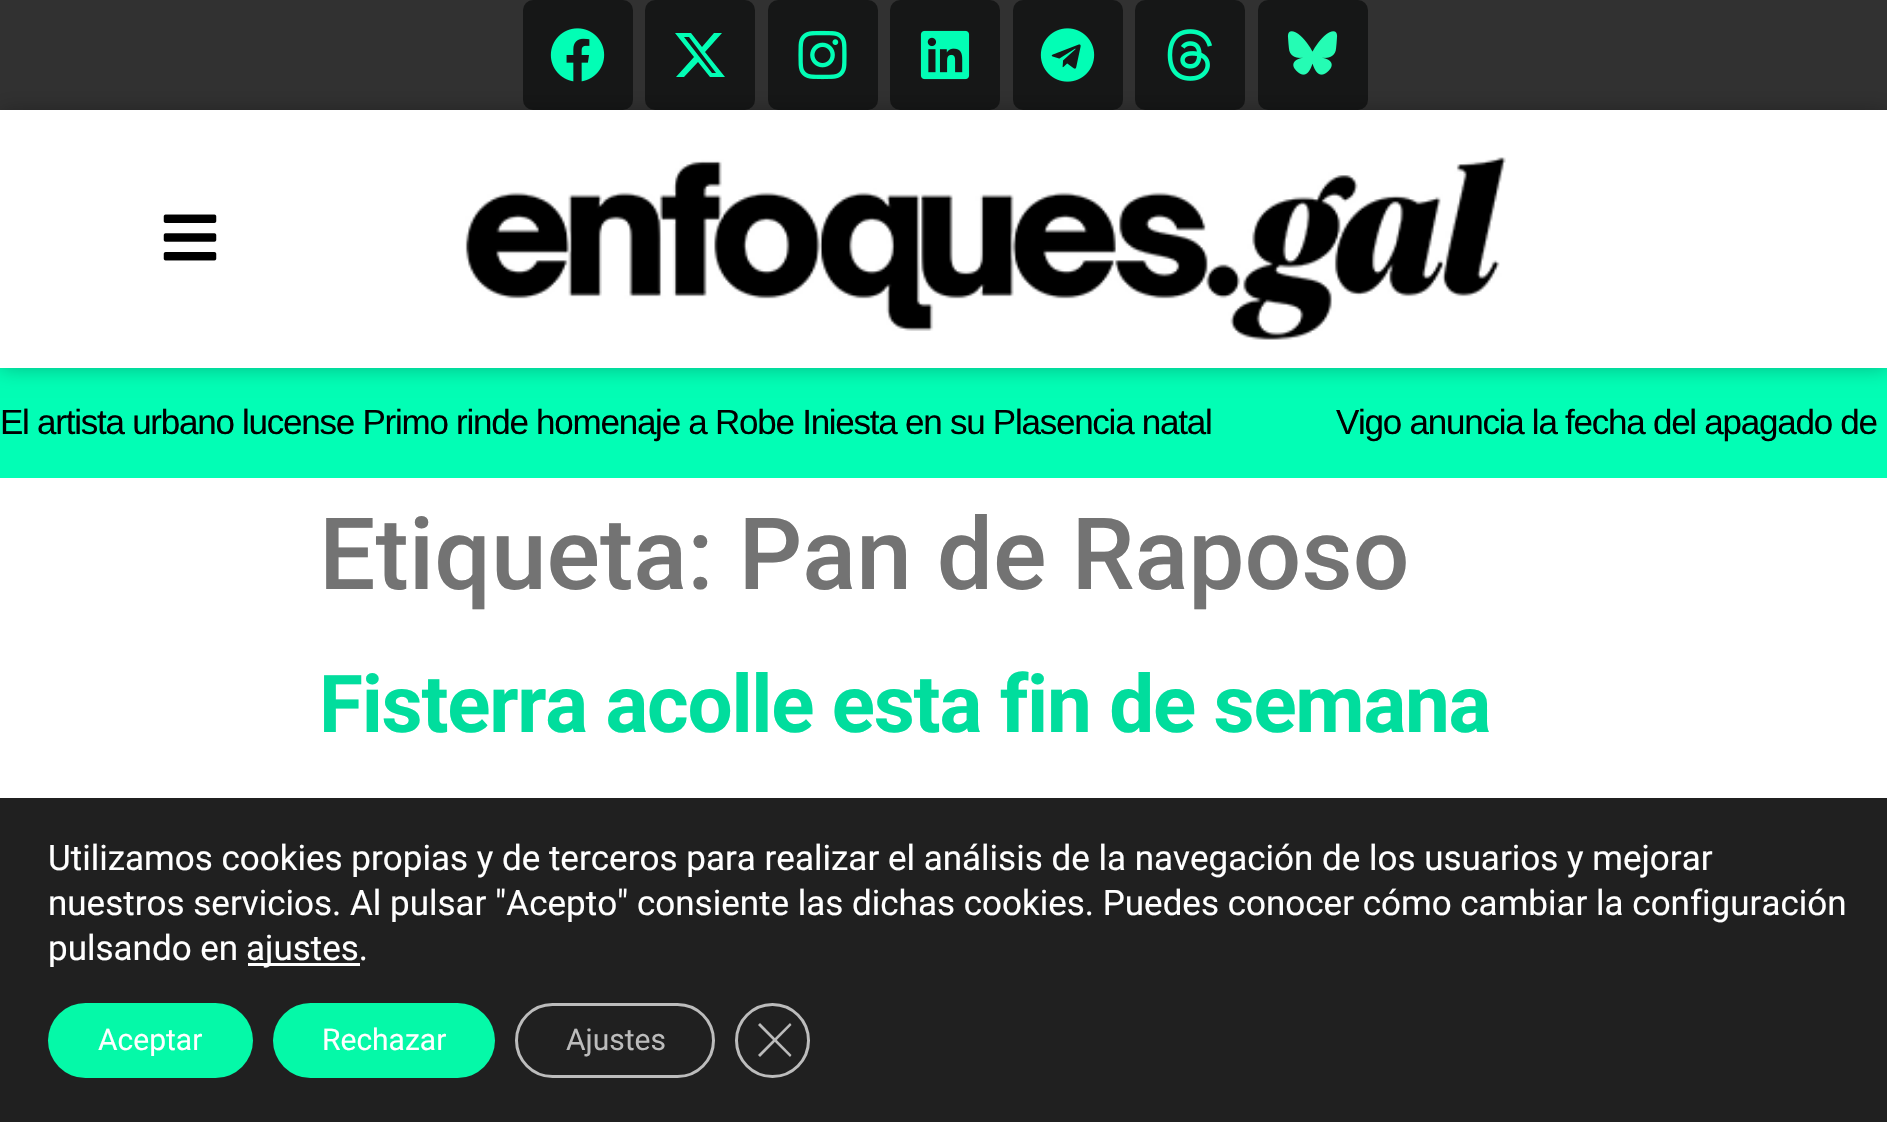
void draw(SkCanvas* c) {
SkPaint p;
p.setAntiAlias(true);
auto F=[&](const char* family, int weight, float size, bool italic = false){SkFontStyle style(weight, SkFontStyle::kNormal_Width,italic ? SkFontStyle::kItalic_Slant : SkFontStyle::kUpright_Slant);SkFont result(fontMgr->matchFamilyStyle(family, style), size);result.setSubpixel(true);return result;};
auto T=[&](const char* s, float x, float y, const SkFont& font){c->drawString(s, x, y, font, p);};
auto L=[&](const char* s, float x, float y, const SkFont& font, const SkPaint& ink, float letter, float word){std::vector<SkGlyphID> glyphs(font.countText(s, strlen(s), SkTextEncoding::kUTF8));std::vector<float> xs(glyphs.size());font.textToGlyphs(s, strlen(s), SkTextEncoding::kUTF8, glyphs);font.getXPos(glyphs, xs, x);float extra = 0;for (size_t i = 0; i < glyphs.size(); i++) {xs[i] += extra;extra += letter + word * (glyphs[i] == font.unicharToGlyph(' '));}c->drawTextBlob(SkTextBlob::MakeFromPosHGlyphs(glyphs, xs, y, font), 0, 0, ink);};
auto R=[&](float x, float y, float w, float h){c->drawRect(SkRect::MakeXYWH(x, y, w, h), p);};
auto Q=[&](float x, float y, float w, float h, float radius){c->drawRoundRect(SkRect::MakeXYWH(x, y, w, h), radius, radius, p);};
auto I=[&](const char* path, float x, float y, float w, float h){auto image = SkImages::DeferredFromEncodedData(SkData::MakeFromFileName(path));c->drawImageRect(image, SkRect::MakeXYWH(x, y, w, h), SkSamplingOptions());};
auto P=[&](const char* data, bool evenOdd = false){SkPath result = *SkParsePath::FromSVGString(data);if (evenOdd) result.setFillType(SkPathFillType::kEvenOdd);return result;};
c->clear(0xffffffff);
p.setColor(0xff313131);
R(0,0,1887,110);
p.setColor(0xff161717);
Q(523,0,110,110,10);
I("1.png",550,28,55,54);
Q(645,0,110,110,10);
p.setColor(0xff02feb5);
c->drawPath(P("M714 33h8l-17 19l20 25h-15l-12-15l-14 15h-8l18-20l-19-24h16l11 14zm-2 40h4l-27-36h-5z"),p);
p.setColor(0xff161717);
Q(768,0,110,110,10);
I("2.png",798,30,49,50);
Q(890,0,110,110,10);
I("3.png",920,30,50,50);
Q(1013,0,110,110,10);
I("4.png",1040,28,55,54);
Q(1135,0,110,110,10);
I("5.png",1167,29,45,52);
Q(1258,0,110,110,10);
I("6.png",1287,31,51,44);
p.setColor(0xff02feb5);
R(0,368,1887,110);
p.setColor(0x45000000);
p.setMaskFilter(SkMaskFilter::MakeBlur(kNormal_SkBlurStyle, 10));
c->drawRect(SkRect::MakeXYWH(0,110,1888,258),p);
p.setMaskFilter(nullptr);
p.setColor(0xffffffff);
R(0,110,1887,258);
I("7.png",163,214,54,47);
I("8.png",465,157,1041,183);
auto f1 = F("Liberation Sans",400,35);
p.setColor(0xff000000);
L("El artista urbano lucense Primo rinde homenaje a Robe Iniesta en su Plasencia natal",0,434,f1,p,-1.25,0);
L("Vigo anuncia la fecha del apagado de",1336,434,f1,p,-1.25,0);
auto f2 = F("Roboto",500,100);
p.setColor(0xff737373);
T("Etiqueta: Pan de Raposo",319,589,f2);
auto f3 = F("Roboto",700,80);
p.setColor(0xff01dd9d);
L("Fisterra acolle esta fin de semana",319,732,f3,p,-1.25,0);
p.setColor(0xff202020);
R(0,798,1887,324);
auto f4 = F("Roboto",400,35);
p.setColor(0xffffffff);
T("Utilizamos cookies propias y de terceros para realizar el análisis de la navegación de los usuarios y mejorar",48,870,f4);
T("nuestros servicios. Al pulsar \"Acepto\" consiente las dichas cookies. Puedes conocer cómo cambiar la configuración",48,915,f4);
T("pulsando en",48,960,f4);
R(248,963,112,3);
T("ajustes.",246,960,f4);
p.setColor(0xff05f9a8);
Q(48,1003,205,75,37.5);
auto f5 = F("Roboto",400,30);
p.setColor(0xffffffff);
T("Aceptar",98,1050,f5);
p.setColor(0xff05f9a8);
Q(273,1003,222,75,37.5);
p.setColor(0xffffffff);
T("Rechazar",322,1050,f5);
p.setStroke(true);
p.setStrokeWidth(3);
p.setColor(0xffbcbcbc);
c->drawRoundRect(SkRect::MakeXYWH(516.5,1004.5,197,72),36,36,p);
p.setStroke(false);
T("Ajustes",566,1050,f5);
p.setStroke(true);
c->drawCircle(772.5,1040.5,36,p);
p.setStroke(false);
c->drawPath(P("M790 1023l1.5 2l-31.5 32l-2-2z"),p);
c->drawPath(P("M758 1025l2-2l31.5 32l-1.5 2z"),p);
}
